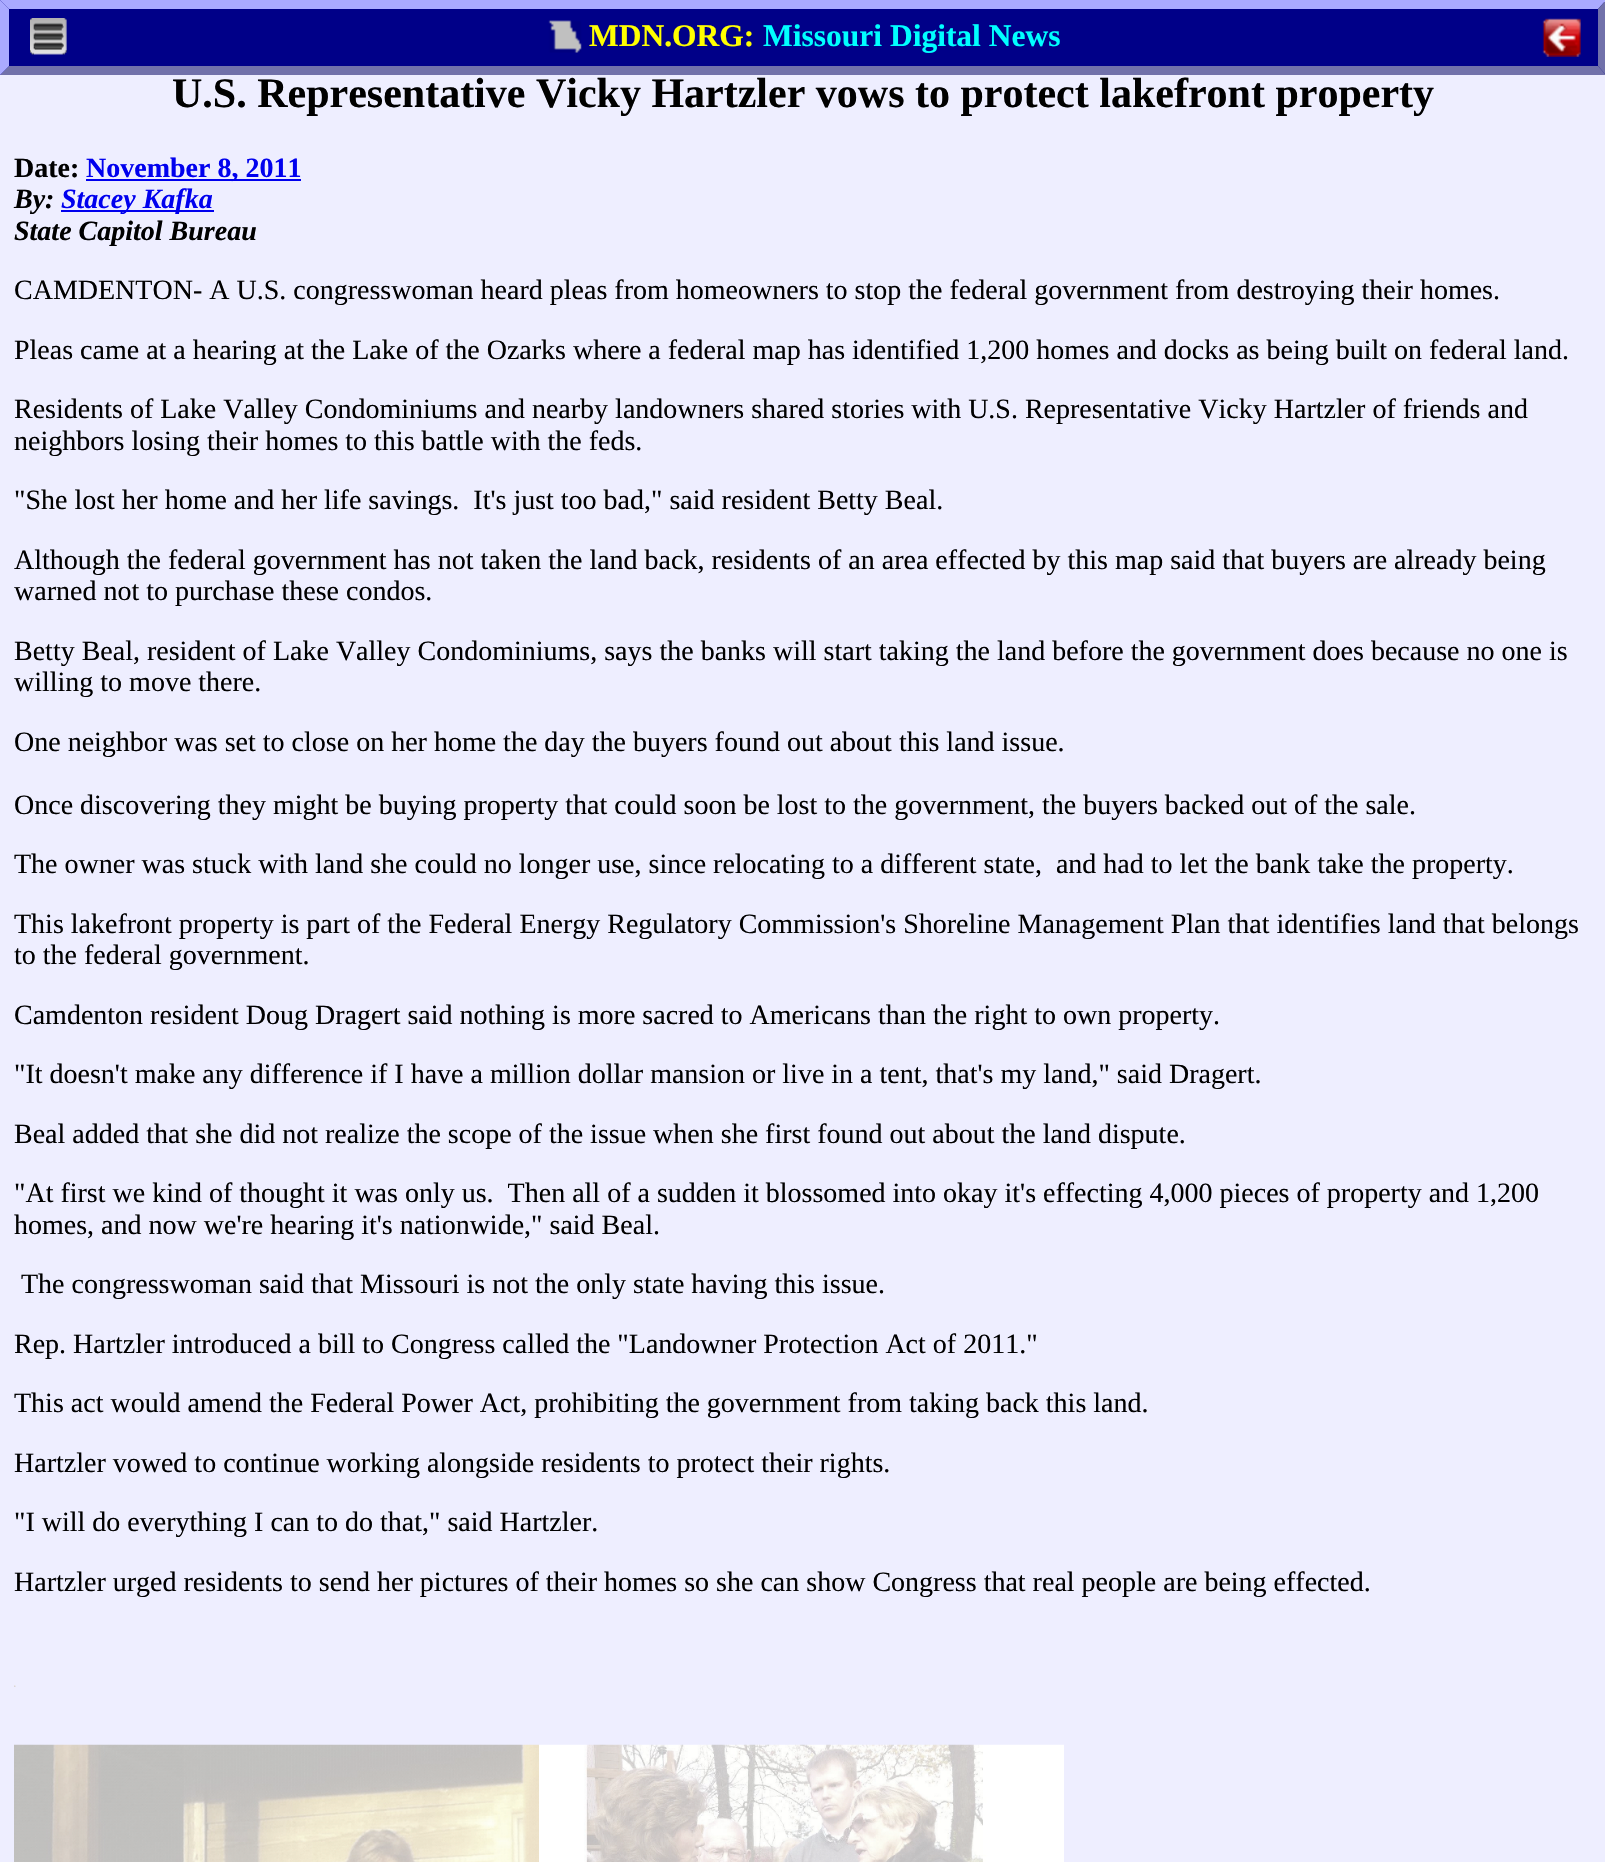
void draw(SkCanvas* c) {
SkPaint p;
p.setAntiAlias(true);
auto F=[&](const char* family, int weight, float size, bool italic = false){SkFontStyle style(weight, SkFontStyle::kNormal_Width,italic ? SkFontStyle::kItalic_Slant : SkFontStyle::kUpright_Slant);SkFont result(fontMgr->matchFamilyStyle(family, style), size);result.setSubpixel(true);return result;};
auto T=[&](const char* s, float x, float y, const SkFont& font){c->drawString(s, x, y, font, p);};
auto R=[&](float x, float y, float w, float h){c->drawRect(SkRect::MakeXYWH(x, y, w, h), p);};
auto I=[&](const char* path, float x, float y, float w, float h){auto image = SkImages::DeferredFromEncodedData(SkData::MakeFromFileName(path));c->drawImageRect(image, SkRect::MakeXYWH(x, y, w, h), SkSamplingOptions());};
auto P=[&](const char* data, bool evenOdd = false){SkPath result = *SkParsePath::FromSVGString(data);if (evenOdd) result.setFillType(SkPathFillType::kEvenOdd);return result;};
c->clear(0xffeeeeff);
p.setColor(0xff000088);
R(0,0,1605,75);
p.setColor(0xffaaaaff);
c->drawPath(P("M0 0h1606l-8 9h-1589z"),p);
p.setColor(0xff7171aa);
c->drawPath(P("M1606 0v75l-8-9v-57z"),p);
c->drawPath(P("M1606 75h-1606l9-9h1589z"),p);
p.setColor(0xffaaaaff);
c->drawPath(P("M0 75v-75l9 9v57z"),p);
I("1.png",30,18,37,37);
I("2.png",548,20,34,33);
auto f1 = F("Liberation Serif",700,31.5);
p.setColor(0xffffff00);
T("MDN.ORG:",589,46,f1);
p.setColor(0xff00ffff);
T("Missouri Digital News",763,46,f1);
I("3.png",1542,18,39,39);
auto f2 = F("Liberation Serif",700,42);
p.setColor(0xff000000);
T("U.S. Representative Vicky Hartzler vows to protect lakefront property",172,107,f2);
auto f3 = F("Liberation Serif",700,28);
T("Date:",14,177,f3);
p.setColor(0xff0000ee);
R(86,179,215,2);
T("November 8, 2011",86,177,f3);
auto f4 = F("Liberation Serif",700,28,true);
p.setColor(0xff000000);
T("By:",14,208,f4);
p.setColor(0xff0000ee);
R(61,210,153,2);
T("Stacey Kafka",61,208,f4);
p.setColor(0xff000000);
T("State Capitol Bureau",14,240,f4);
auto f5 = F("Liberation Serif",400,28);
T("CAMDENTON- A U.S. congresswoman heard pleas from homeowners to stop the federal government from destroying their homes.",14,299,f5);
T("Pleas came at a hearing at the Lake of the Ozarks where a federal map has identified 1,200 homes and docks as being built on federal land.",14,359,f5);
T("Residents of Lake Valley Condominiums and nearby landowners shared stories with U.S. Representative Vicky Hartzler of friends and",14,418,f5);
T("neighbors losing their homes to this battle with the feds.",14,450,f5);
T("\"She lost her home and her life savings.  It's just too bad,\" said resident Betty Beal.",14,509,f5);
T("Although the federal government has not taken the land back, residents of an area effected by this map said that buyers are already being",14,569,f5);
T("warned not to purchase these condos.",14,600,f5);
T("Betty Beal, resident of Lake Valley Condominiums, says the banks will start taking the land before the government does because no one is",14,660,f5);
T("willing to move there.",14,691,f5);
T("One neighbor was set to close on her home the day the buyers found out about this land issue.",14,751,f5);
T("Once discovering they might be buying property that could soon be lost to the government, the buyers backed out of the sale.",14,814,f5);
T("The owner was stuck with land she could no longer use, since relocating to a different state,  and had to let the bank take the property.",14,873,f5);
T("This lakefront property is part of the Federal Energy Regulatory Commission's Shoreline Management Plan that identifies land that belongs",14,933,f5);
T("to the federal government.",14,964,f5);
T("Camdenton resident Doug Dragert said nothing is more sacred to Americans than the right to own property.",14,1024,f5);
T("\"It doesn't make any difference if I have a million dollar mansion or live in a tent, that's my land,\" said Dragert.",14,1083,f5);
T("Beal added that she did not realize the scope of the issue when she first found out about the land dispute.",14,1143,f5);
T("\"At first we kind of thought it was only us.  Then all of a sudden it blossomed into okay it's effecting 4,000 pieces of property and 1,200",14,1202,f5);
T("homes, and now we're hearing it's nationwide,\" said Beal.",14,1234,f5);
T("The congresswoman said that Missouri is not the only state having this issue.",21,1293,f5);
T("Rep. Hartzler introduced a bill to Congress called the \"Landowner Protection Act of 2011.\"",14,1353,f5);
T("This act would amend the Federal Power Act, prohibiting the government from taking back this land.",14,1412,f5);
T("Hartzler vowed to continue working alongside residents to protect their rights.",14,1472,f5);
T("\"I will do everything I can to do that,\" said Hartzler.",14,1531,f5);
T("Hartzler urged residents to send her pictures of their homes so she can show Congress that real people are being effected.",14,1591,f5);
I("4.png",14,1685,2,2);
I("5.png",14,1744,525,118);
I("6.png",539,1744,525,118);
}
